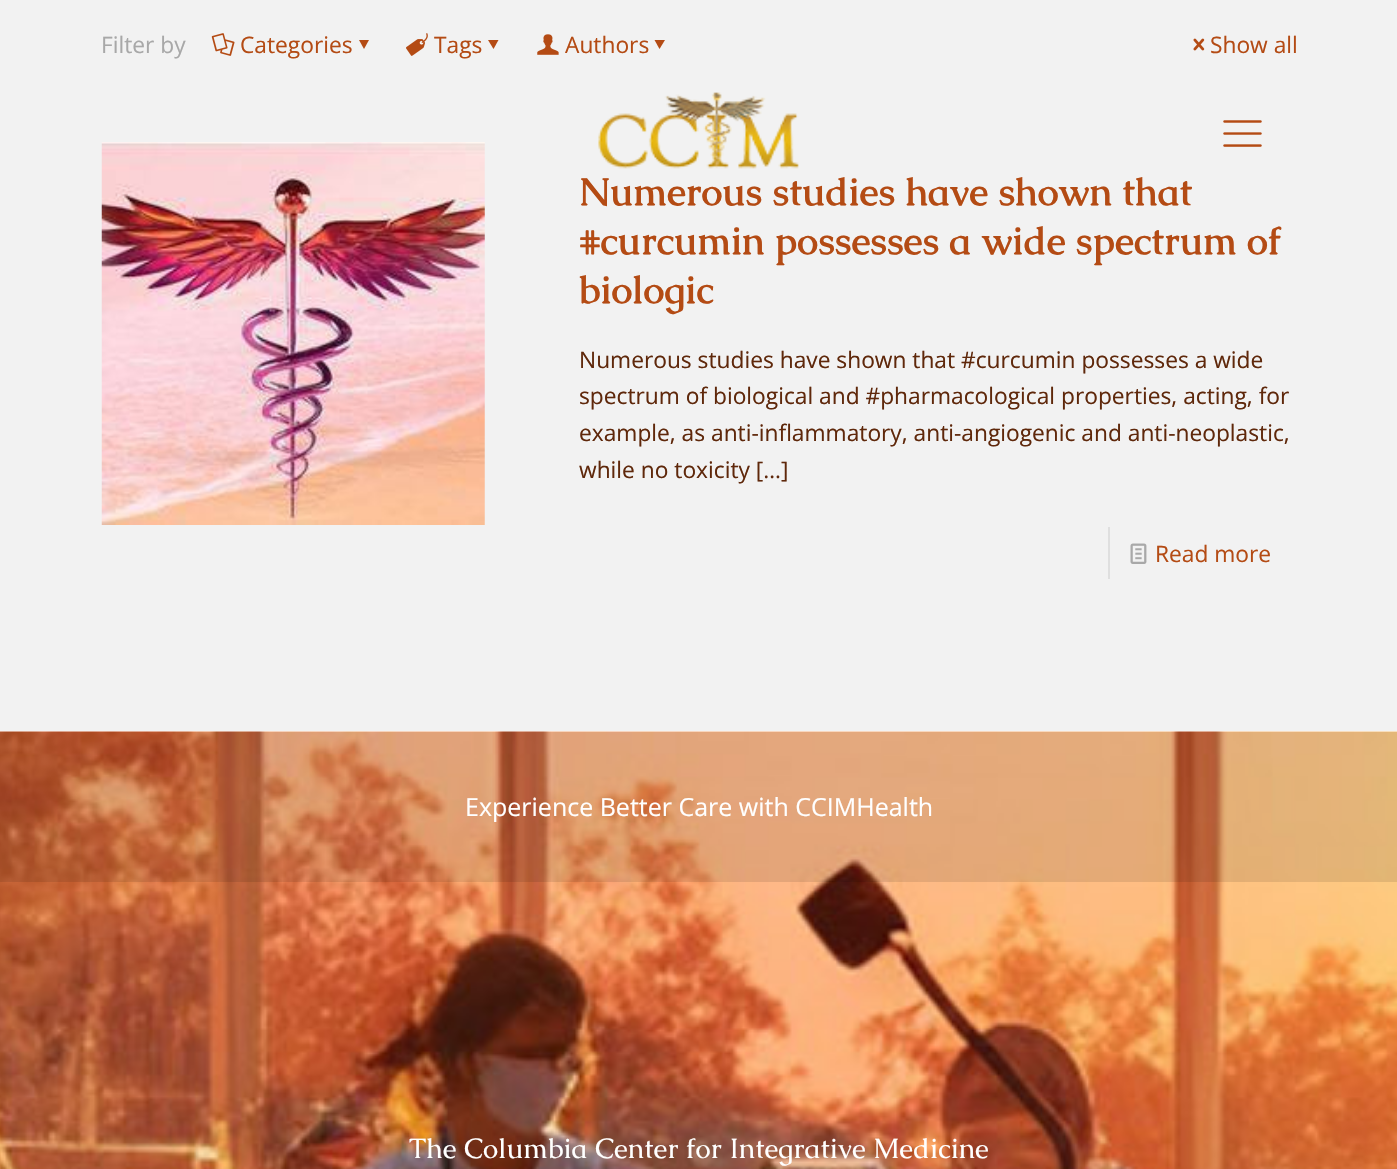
void draw(SkCanvas* c) {
SkPaint p;
p.setAntiAlias(true);
auto F=[&](const char* family, int weight, float size, bool italic = false){SkFontStyle style(weight, SkFontStyle::kNormal_Width,italic ? SkFontStyle::kItalic_Slant : SkFontStyle::kUpright_Slant);SkFont result(fontMgr->matchFamilyStyle(family, style), size);result.setSubpixel(true);return result;};
auto T=[&](const char* s, float x, float y, const SkFont& font){c->drawString(s, x, y, font, p);};
auto R=[&](float x, float y, float w, float h){c->drawRect(SkRect::MakeXYWH(x, y, w, h), p);};
auto I=[&](const char* path, float x, float y, float w, float h){auto image = SkImages::DeferredFromEncodedData(SkData::MakeFromFileName(path));c->drawImageRect(image, SkRect::MakeXYWH(x, y, w, h), SkSamplingOptions());};
auto P=[&](const char* data, bool evenOdd = false){SkPath result = *SkParsePath::FromSVGString(data);if (evenOdd) result.setFillType(SkPathFillType::kEvenOdd);return result;};
c->clear(0xfff2f2f2);
auto f1 = F("Open Sans",400,22.75);
p.setColor(0xffa8a8a8);
T("Filter by",101,53,f1);
I("1.png",211,33,24,23);
p.setColor(0xffb44b14);
T("Categories",240,53,f1);
c->drawPath(P("M369 40l-5 9l-5-9z"),p);
I("2.png",406,33,22,23);
T("Tags",434,53,f1);
c->drawPath(P("M498.5 40l-5 9l-5.5-9z"),p);
I("3.png",537,34,22,21);
T("Authors",565,53,f1);
c->drawPath(P("M665 40l-5.5 9l-5-9z"),p);
I("4.png",1193,38,12,13);
T("Show all",1210,53,f1);
I("5.png",101,142,384,383);
auto f2 = F("Caudex",700,38.5);
T("Numerous studies have shown that",579,205,f2);
T("#curcumin possesses a wide spectrum of",579,254,f2);
T("biologic",579,303,f2);
p.setColor(0xff5f280b);
T("Numerous studies have shown that #curcumin possesses a wide",579,368,f1);
T("spectrum of biological and #pharmacological properties, acting, for",579,404,f1);
T("example, as anti-inflammatory, anti-angiogenic and anti-neoplastic,",579,441,f1);
T("while no toxicity […]",579,478,f1);
p.setColor(0xffdfdfdf);
R(1108,527,2,52);
I("6.png",1130,543,17,21);
p.setColor(0xffb44b14);
T("Read more",1155,562,f1);
I("7.png",598,92,201,77);
I("8.png",1223,120,39,27);
I("9.png",0,731,1397,438);
p.setColor(0x1a000000);
R(0,732,1397,150);
auto f3 = F("Open Sans",400,25);
p.setColor(0xffffffff);
T("Experience Better Care with CCIMHealth",465,816,f3);
auto f4 = F("Caudex",400,28);
T("The Columbia Center for Integrative Medicine",409,1158,f4);
}
